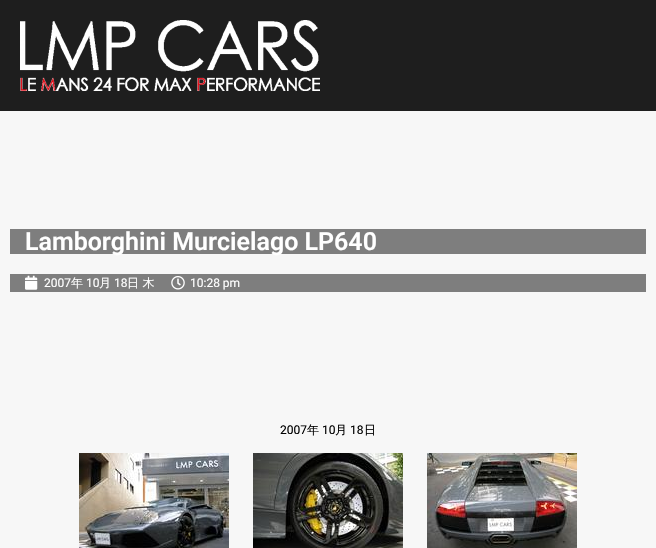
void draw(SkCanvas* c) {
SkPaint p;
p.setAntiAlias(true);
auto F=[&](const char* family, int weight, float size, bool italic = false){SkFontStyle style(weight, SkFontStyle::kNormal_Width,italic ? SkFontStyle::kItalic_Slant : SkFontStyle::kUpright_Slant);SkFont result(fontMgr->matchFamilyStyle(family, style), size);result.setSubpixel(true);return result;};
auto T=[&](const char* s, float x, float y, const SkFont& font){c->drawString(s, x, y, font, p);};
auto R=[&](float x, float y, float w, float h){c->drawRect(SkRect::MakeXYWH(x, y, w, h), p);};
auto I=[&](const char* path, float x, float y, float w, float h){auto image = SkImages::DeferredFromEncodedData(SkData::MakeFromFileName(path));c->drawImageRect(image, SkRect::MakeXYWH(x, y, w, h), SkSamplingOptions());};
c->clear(0xfff7f7f7);
p.setColor(0xff1e1e1e);
R(0,0,656,111);
I("1.png",20,20,300,71);
p.setColor(0xff7e7e7e);
R(10,229,636,25);
auto f1 = F("Roboto",600,25);
p.setColor(0xffffffff);
T("Lamborghini Murcielago LP640",25,250,f1);
p.setColor(0xff7e7e7e);
R(10,274,636,18);
I("2.png",25,275,13,15);
auto f2 = F("Roboto",400,12);
p.setColor(0xffffffff);
T("2007",44,287,f2);
auto f3 = F("WenQuanYi Zen Hei",500,12);
T("年",71,287,f3);
T("10",86,287,f2);
T("月",99,287,f3);
T("18",114,287,f2);
T("日 木",127,287,f3);
I("3.png",171,276,14,14);
T("10:28 pm",190,287,f2);
p.setColor(0xff000000);
T("2007",280,434,f2);
T("年",307,434,f3);
T("10",322,434,f2);
T("月",335,434,f3);
T("18",350,434,f2);
T("日",364,434,f3);
I("4.png",79,453,150,95);
I("5.png",253,453,150,95);
I("6.png",427,453,150,95);
}
